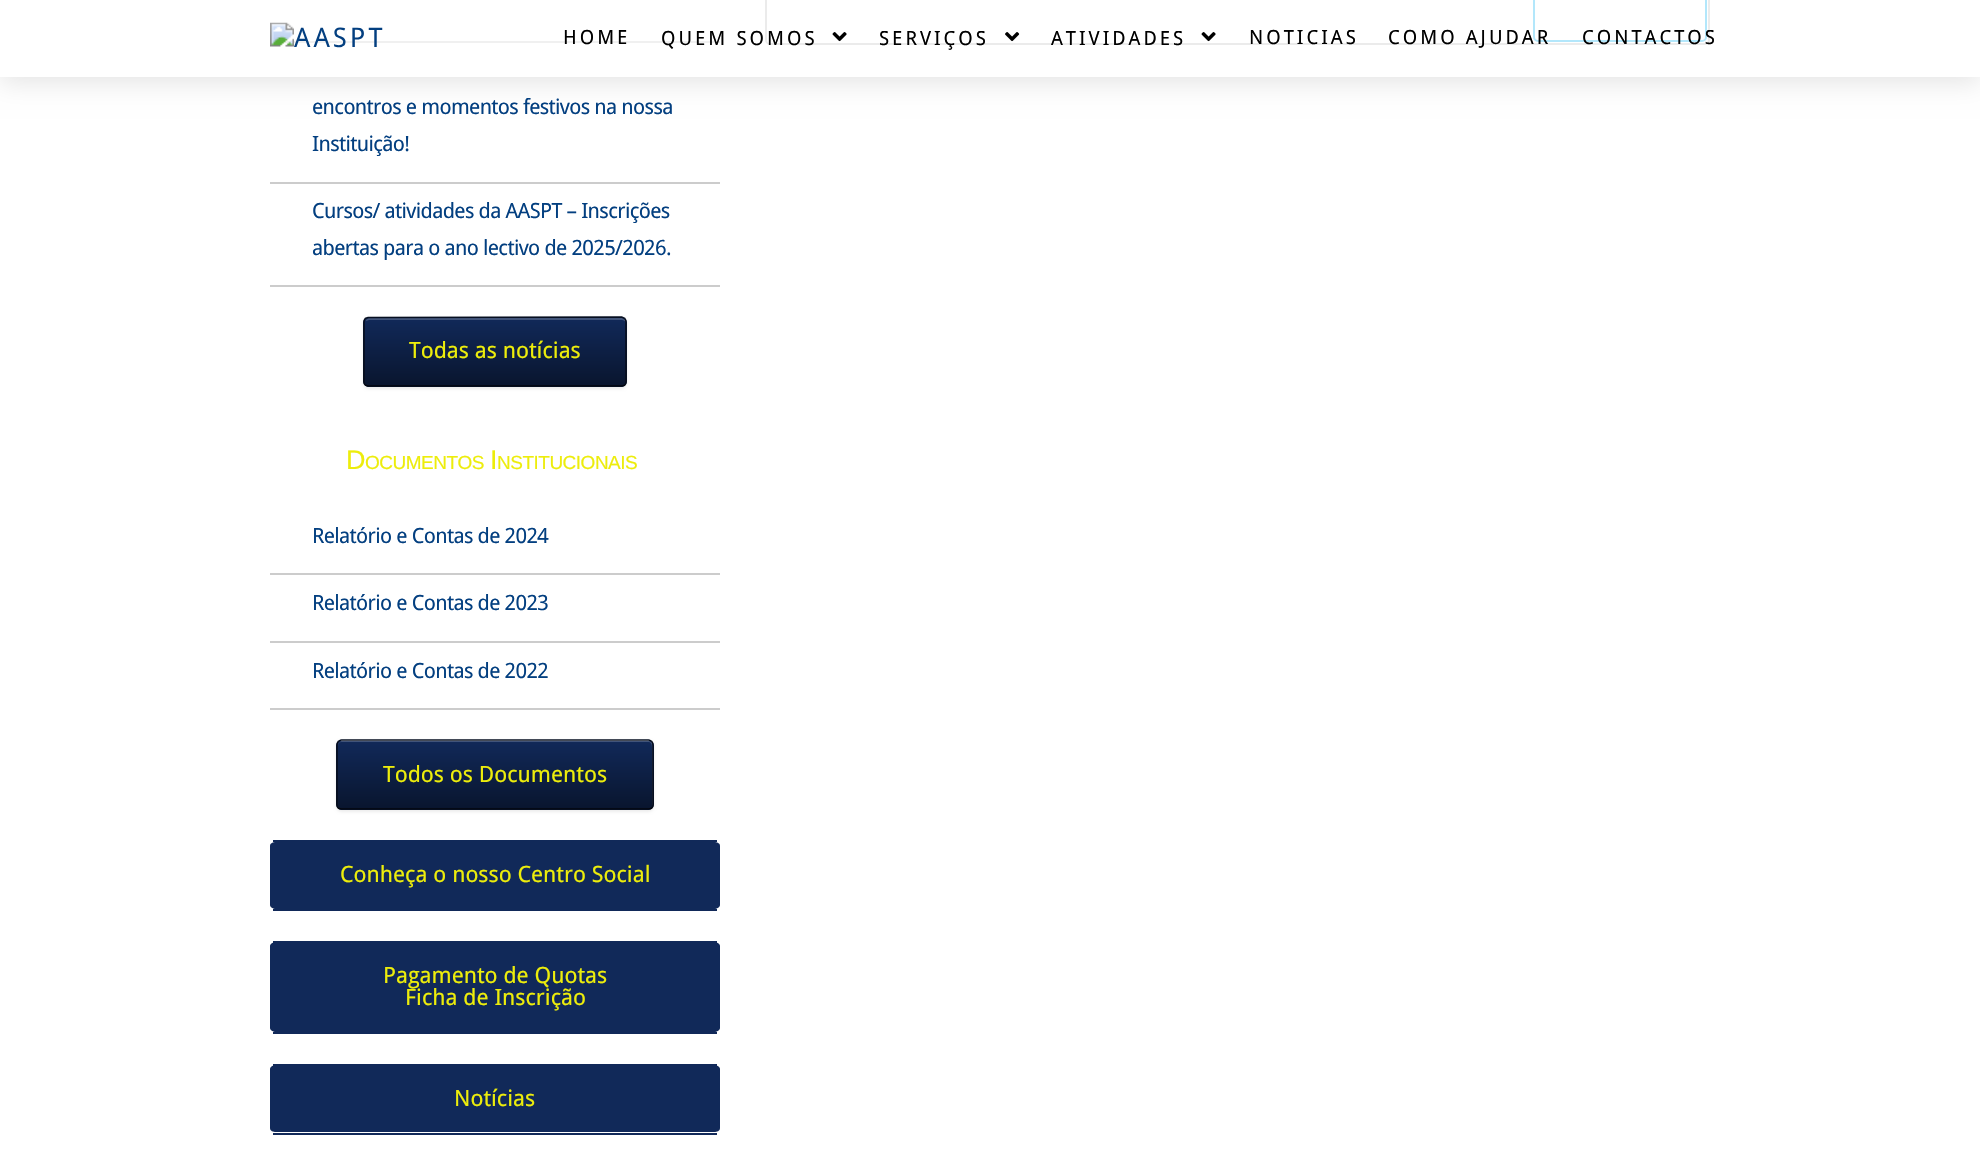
void draw(SkCanvas* c) {
SkPaint p;
p.setAntiAlias(true);
auto F=[&](const char* family, int weight, float size, bool italic = false){SkFontStyle style(weight, SkFontStyle::kNormal_Width,italic ? SkFontStyle::kItalic_Slant : SkFontStyle::kUpright_Slant);SkFont result(fontMgr->matchFamilyStyle(family, style), size);result.setSubpixel(true);return result;};
auto T=[&](const char* s, float x, float y, const SkFont& font){c->drawString(s, x, y, font, p);};
auto L=[&](const char* s, float x, float y, const SkFont& font, const SkPaint& ink, float letter, float word){std::vector<SkGlyphID> glyphs(font.countText(s, strlen(s), SkTextEncoding::kUTF8));std::vector<float> xs(glyphs.size());font.textToGlyphs(s, strlen(s), SkTextEncoding::kUTF8, glyphs);font.getXPos(glyphs, xs, x);float extra = 0;for (size_t i = 0; i < glyphs.size(); i++) {xs[i] += extra;extra += letter + word * (glyphs[i] == font.unicharToGlyph(' '));}c->drawTextBlob(SkTextBlob::MakeFromPosHGlyphs(glyphs, xs, y, font), 0, 0, ink);};
auto R=[&](float x, float y, float w, float h){c->drawRect(SkRect::MakeXYWH(x, y, w, h), p);};
auto I=[&](const char* path, float x, float y, float w, float h){auto image = SkImages::DeferredFromEncodedData(SkData::MakeFromFileName(path));c->drawImageRect(image, SkRect::MakeXYWH(x, y, w, h), SkSamplingOptions());};
auto P=[&](const char* data, bool evenOdd = false){SkPath result = *SkParsePath::FromSVGString(data);if (evenOdd) result.setFillType(SkPathFillType::kEvenOdd);return result;};
c->clear(0xffffffff);
p.setStroke(true);
p.setStrokeWidth(2);
p.setColor(0xffbbbbbb);
c->drawRoundRect(SkRect::MakeXYWH(766,-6,943,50),4,4,p);
p.setColor(0xff00aff2);
c->drawRoundRect(SkRect::MakeXYWH(1534,-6,172,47),4,4,p);
p.setStroke(false);
p.setColor(0xffcccccc);
R(283,41,437,2);
c->save();
c->clipPath(P("M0 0h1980v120h-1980zm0 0h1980v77h-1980z",true),true);
p.setColor(0x1a000000);
p.setMaskFilter(SkMaskFilter::MakeBlur(kNormal_SkBlurStyle, 12));
c->drawRect(SkRect::MakeXYWH(0,6,1980,77),p);
p.setMaskFilter(nullptr);
c->restore();
p.setColor(0xb3ffffff);
R(0,0,1980,77);
I("1.png",270,22,113,26);
auto f1 = F("Droid Sans",400,19.5);
p.setColor(0xff000000);
L("HOME",563,44,f1,p,3,0);
L("QUEM SOMOS",661,45,f1,p,3,0);
I("2.png",832,32,15,10);
L("SERVIÇOS",879,45,f1,p,3,0);
I("3.png",1005,32,15,10);
L("ATIVIDADES",1051,45,f1,p,3,0);
I("2.png",1201,32,15,10);
L("NOTICIAS",1249,44,f1,p,3,0);
L("COMO AJUDAR",1388,44,f1,p,3,0);
L("CONTACTOS",1582,44,f1,p,3,0);
p.setColor(0xffcccccc);
R(270,182,450,2);
auto f2 = F("Droid Sans",400,21);
p.setColor(0xff033f80);
L("encontros e momentos festivos na nossa",312,114,f2,p,-.65,0);
L("Instituição!",312,151,f2,p,-.65,0);
p.setColor(0xffcccccc);
R(270,285,450,2);
p.setColor(0xff033f80);
L("Cursos/ atividades da AASPT – Inscrições",312,218,f2,p,-.65,0);
L("abertas para o ano lectivo de 2025/2026.",312,255,f2,p,-.65,0);
p.setColor(0x12000000);
p.setMaskFilter(SkMaskFilter::MakeBlur(kNormal_SkBlurStyle, 1.5));
c->drawRoundRect(SkRect::MakeXYWH(363,318,264,71),6,6,p);
p.setMaskFilter(nullptr);
c->save();
c->clipPath(P("M369 317h252c3.5 0 6 2.5 6 6v58c0 3.5-2.5 6-6 6h-252c-3.5 0-6-2.5-6-6v-58c0-3.5 2.5-6 6-6z"),true);
{
const SkColor colors[] = {0xff09152e,0xff112959};
const float stops[] = {0,1};
const SkPoint ends[] = {{365,386}, {365,318}};
p.setShader(SkGradientShader::MakeLinear(ends, colors, stops, 2, SkTileMode::kClamp));
p.setAlpha(255);
}
R(363,318,264,68);
{
const SkColor colors[] = {0xff09152e,0xff112959};
const float stops[] = {0,1};
const SkPoint ends[] = {{365,453}, {365,386}};
p.setShader(SkGradientShader::MakeLinear(ends, colors, stops, 2, SkTileMode::kClamp));
p.setAlpha(255);
}
R(363,386,264,1);
c->restore();
p.setShader(nullptr);
p.setColor(0xff41547a);
c->drawPath(P("M369 320h252c3 0 5 1 5 4v-1c0-3-2-5-5-5h-251c-2 0-4 1-4 3z"),p);
p.setStroke(true);
p.setStrokeWidth(1.5);
p.setColor(0xff060f21);
c->drawPath(P("M365 318.5l3-1l253.5-.5c1 .5 2.5 1 3.5 1.5"),p);
p.setColor(0xff050b19);
c->drawPath(P("M625 318.5c.5 1 1 2.5 1 3.5v59.5c0 1-.5 2.5-1 3.5"),p);
p.setColor(0xff02050c);
c->drawPath(P("M625 385c-1 .5-2.5 1-3.5 1h-253.5l-3-1"),p);
p.setColor(0xff050b19);
c->drawPath(P("M365 385c-.5-1-1-2.5-1-3.5v-59.5c0-1 .5-2.5 1-3.5"),p);
auto f3 = F("Droid Sans",400,22.5);
p.setStroke(false);
p.setColor(0xffeded0b);
T("Todas as notícias",409,358,f3);
auto f4 = F("Liberation Sans",400,27);
L("D",346,469,f4,p,-.5,0);
auto f5 = F("Liberation Sans",400,19);
L("OCUMENTOS",365,469,f5,p,-.5,0);
L("I",490,469,f4,p,-.5,0);
L("NSTITUCIONAIS",497,469,f5,p,-.5,0);
p.setColor(0xffcccccc);
R(270,573,450,2);
p.setColor(0xff033f80);
L("Relatório e Contas de 2024",312,543,f2,p,-.65,0);
p.setColor(0xffcccccc);
R(270,641,450,2);
p.setColor(0xff033f80);
L("Relatório e Contas de 2023",312,610,f2,p,-.65,0);
p.setColor(0xffcccccc);
R(270,708,450,2);
p.setColor(0xff033f80);
L("Relatório e Contas de 2022",312,678,f2,p,-.65,0);
p.setColor(0x12000000);
p.setMaskFilter(SkMaskFilter::MakeBlur(kNormal_SkBlurStyle, 1.5));
c->drawRoundRect(SkRect::MakeXYWH(336,741,318,71),6,6,p);
p.setMaskFilter(nullptr);
c->save();
c->clipPath(P("M342 740h306c3.5 0 6 2.5 6 6v58c0 3.5-2.5 6-6 6h-306c-3.5 0-6-2.5-6-6v-58c0-3.5 2.5-6 6-6z"),true);
{
const SkColor colors[] = {0xff09152e,0xff112959};
const float stops[] = {0,1};
const SkPoint ends[] = {{338,809}, {338,741}};
p.setShader(SkGradientShader::MakeLinear(ends, colors, stops, 2, SkTileMode::kClamp));
p.setAlpha(255);
}
R(336,741,318,68);
{
const SkColor colors[] = {0xff09152e,0xff112959};
const float stops[] = {0,1};
const SkPoint ends[] = {{338,876}, {338,809}};
p.setShader(SkGradientShader::MakeLinear(ends, colors, stops, 2, SkTileMode::kClamp));
p.setAlpha(255);
}
R(336,809,318,1);
c->restore();
p.setShader(nullptr);
p.setColor(0x33ffffff);
c->drawPath(P("M342 742h306c3 0 4 2 4 5v60c1-1 1-2 1-3v-58c0-3-2-5-5-5h-305c-3 0-5 2-5 5v1c0-3 1-5 4-5z"),p);
p.setStroke(true);
p.setColor(0xff060f21);
c->drawPath(P("M338 741.5c1-.5 2.5-1.5 3.5-1.5h307c1 0 2.5 1 3.5 1.5"),p);
p.setColor(0xff050b19);
c->drawPath(P("M652 741.5c.5 1 1 2.5 1 3.5v59.5c0 1-.5 2.5-1 3.5"),p);
p.setColor(0xff02050c);
c->drawPath(P("M652 808c-1 .5-2.5 1-3.5 1h-307c-1 0-2.5-.5-3.5-1"),p);
p.setColor(0xff050b19);
c->drawPath(P("M338 808c-.5-1-1-2.5-1-3.5v-59.5c0-1 .5-2.5 1-3.5"),p);
p.setStroke(false);
p.setColor(0xffeded0b);
T("Todos os Documentos",383,782,f3);
p.setColor(0xff112959);
c->drawPath(P("M276 842h438c3 0 6 1 6 4v59c0 2-3 4-6 4h-438c-3 0-6-2-6-4v-59c0-3 3-4 6-4z"),p);
R(273,840,444,2);
R(273,909,444,2);
p.setColor(0xffeded0b);
T("Conheça o nosso Centro Social",340,882,f3);
p.setColor(0xff112959);
c->drawPath(P("M276 942h438c3 0 6 2 6 4v82c0 2-3 4-6 4h-438c-3 0-6-2-6-4v-82c0-2 3-4 6-4z"),p);
R(273,941,444,2);
R(273,1032,444,2);
p.setColor(0xffeded0b);
T("Pagamento de Quotas",383,983,f3);
T("Ficha de Inscrição",405,1005,f3);
p.setColor(0xff112959);
c->drawPath(P("M276 1065h438c3 0 6 2 6 4v59c0 3-3 4-6 4h-438c-3 0-6-1-6-4v-59c0-2 3-4 6-4z"),p);
R(273,1064,444,2);
R(273,1133,444,2);
p.setColor(0xffeded0b);
T("Notícias",454,1106,f3);
}
